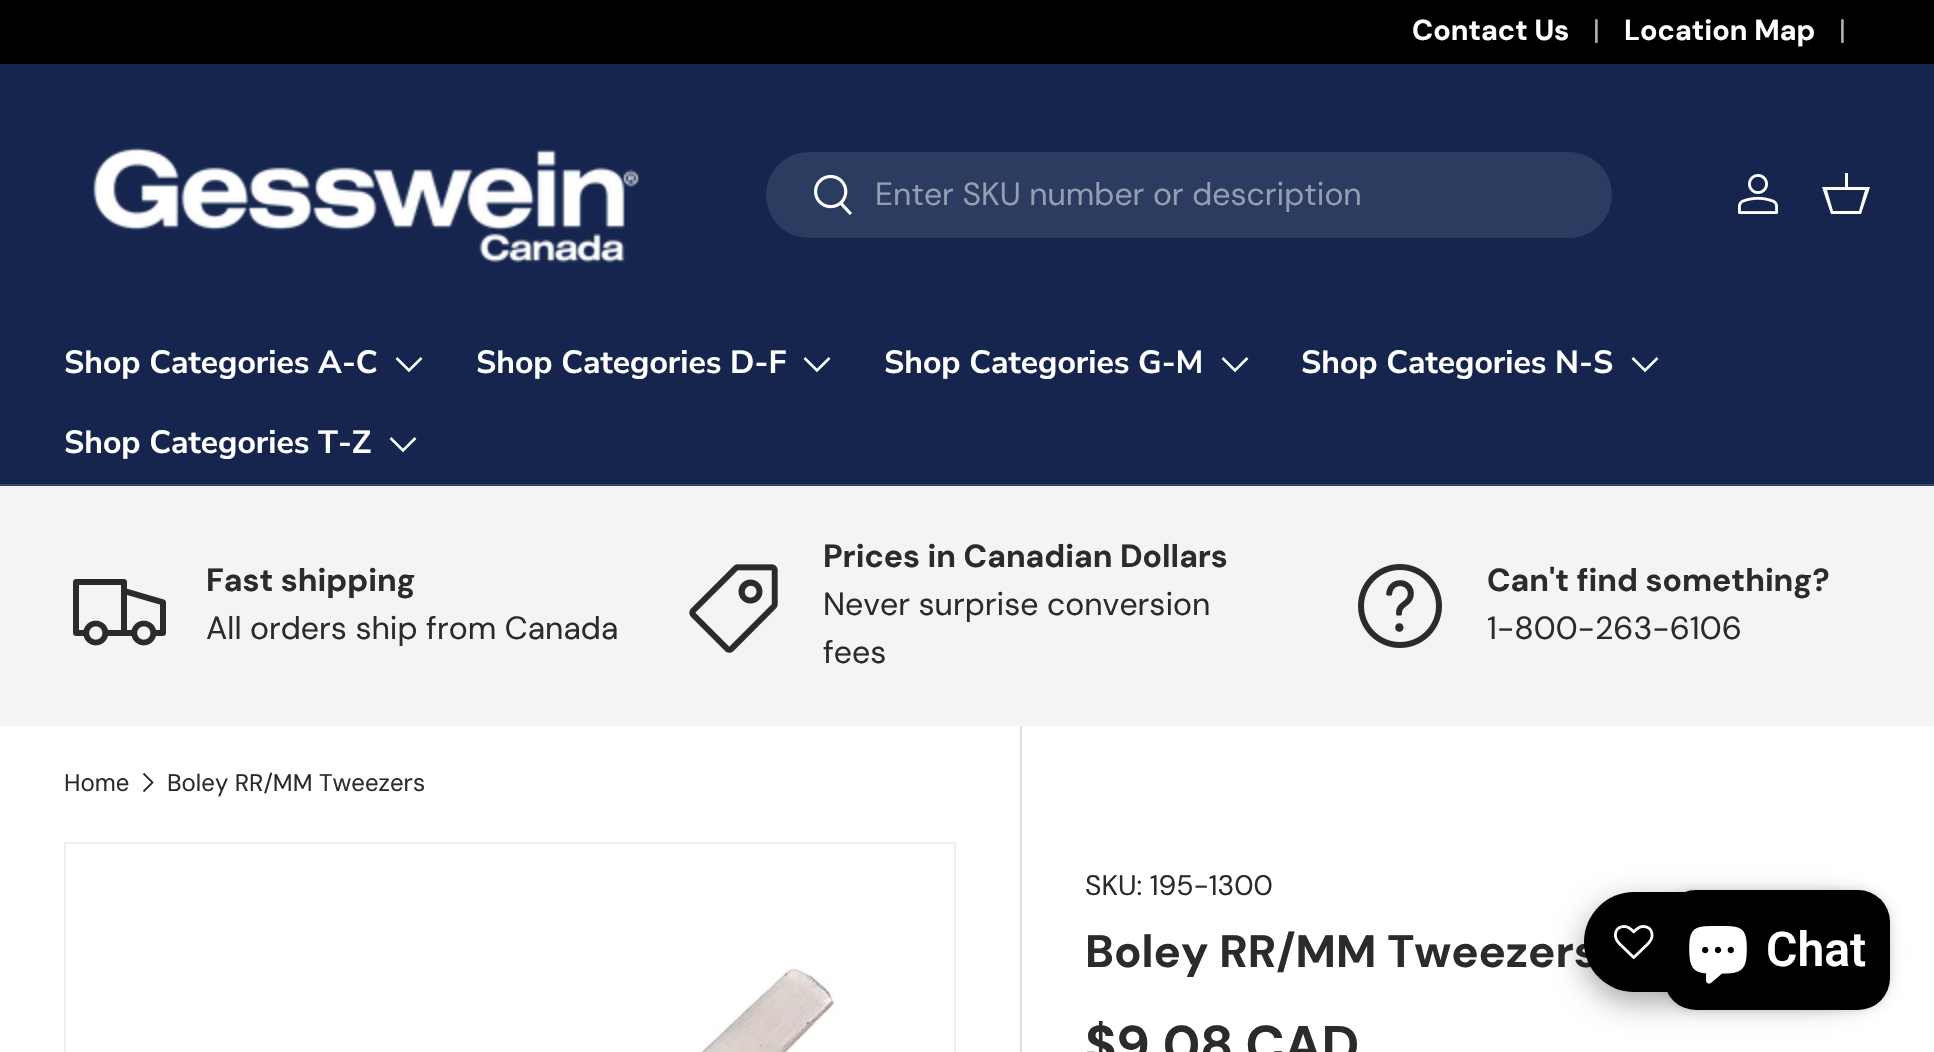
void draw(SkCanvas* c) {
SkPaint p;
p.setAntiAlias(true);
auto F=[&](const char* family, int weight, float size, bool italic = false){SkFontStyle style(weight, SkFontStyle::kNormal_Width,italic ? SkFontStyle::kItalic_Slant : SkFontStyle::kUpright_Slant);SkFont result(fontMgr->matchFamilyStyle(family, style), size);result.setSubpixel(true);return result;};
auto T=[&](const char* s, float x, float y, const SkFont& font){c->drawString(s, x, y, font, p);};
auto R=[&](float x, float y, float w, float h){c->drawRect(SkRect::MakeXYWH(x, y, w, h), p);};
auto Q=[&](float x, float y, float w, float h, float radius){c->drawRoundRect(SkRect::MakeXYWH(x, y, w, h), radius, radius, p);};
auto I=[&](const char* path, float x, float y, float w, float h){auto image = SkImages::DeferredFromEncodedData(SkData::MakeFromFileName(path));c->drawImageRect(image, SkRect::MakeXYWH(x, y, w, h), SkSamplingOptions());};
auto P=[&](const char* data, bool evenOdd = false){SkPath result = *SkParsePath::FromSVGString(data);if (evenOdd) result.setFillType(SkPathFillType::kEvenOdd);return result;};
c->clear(0xffffffff);
p.setColor(0xff000000);
R(0,0,1934,64);
auto f1 = F("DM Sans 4",700,28.75);
p.setColor(0xffffffff);
T("Contact Us",1412,40,f1);
auto f2 = F("DM Sans 4",400,28.75);
p.setColor(0xffb3b3b3);
T("|",1593,40,f2);
p.setColor(0xffffffff);
T("Location Map",1624,40,f1);
p.setColor(0xffb3b3b3);
T("|",1839,40,f2);
p.setColor(0xff15254e);
R(0,64,1934,420);
p.setColor(0xff384669);
R(0,484,1934,2);
I("1.png",93,147,546,116);
p.setColor(0xff2c3b60);
Q(766,152,846,86,43);
I("2.png",814,174,38,41);
auto f3 = F("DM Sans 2",400,32);
p.setColor(0xff969db0);
T("Enter SKU number or description",875,205,f3);
I("3.png",1738,174,40,40);
p.setColor(0xffffffff);
c->drawPath(P("M1845 187v-14h3v14h22l-9 27h-30l-9-27zm-18 3l6 21h26l6-21z"),p);
auto f4 = F("Nunito Sans",700,32);
T("Shop Categories A-C",64,373,f4);
p.setStroke(true);
p.setStrokeWidth(2.5);
c->drawPath(P("M421.5 358l-12.5 12.5l-12.5-12.5"),p);
p.setStroke(false);
T("Shop Categories D-F",476,373,f4);
p.setStroke(true);
c->drawPath(P("M829.5 358l-12.5 12.5l-12.5-12.5"),p);
p.setStroke(false);
T("Shop Categories G-M",884,373,f4);
p.setStroke(true);
c->drawPath(P("M1247.5 358l-12.5 12.5l-12.5-12.5"),p);
p.setStroke(false);
T("Shop Categories N-S",1301,373,f4);
p.setStroke(true);
c->drawPath(P("M1657.5 358l-12.5 12.5l-12.5-12.5"),p);
p.setStroke(false);
T("Shop Categories T-Z",64,453,f4);
p.setStroke(true);
c->drawPath(P("M415.5 438l-12.5 12.5l-12.5-12.5"),p);
p.setStroke(false);
p.setColor(0xfff4f4f4);
R(0,486,1934,240);
I("4.png",73,579,93,67);
auto f5 = F("DM Sans",700,32);
p.setColor(0xff2a2b2a);
T("Fast shipping",206,591,f5);
T("All orders ship from Canada",206,639,f3);
I("5.png",689,564,89,89);
T("Prices in Canadian Dollars",823,567,f5);
T("Never surprise conversion",823,615,f3);
T("fees",823,663,f3);
I("6.png",1358,564,84,84);
T("Can't find something?",1487,591,f5);
T("1-800-263-6106",1487,639,f3);
auto f6 = F("DM Sans",400,24);
T("Home",64,791,f6);
p.setStroke(true);
p.setStrokeWidth(1.8);
c->drawPath(P("M143.5 773.5l9 9l-9 9"),p);
p.setStroke(false);
T("Boley RR/MM Tweezers",167,791,f6);
p.setStroke(true);
p.setStrokeWidth(2);
p.setColor(0xffeeeeee);
c->drawRect(SkRect::MakeXYWH(65,843,890,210),p);
I("7.png",66,844,888,208);
p.setStroke(false);
p.setColor(0xffdfdfdf);
R(1020,726,2,326);
auto f7 = F("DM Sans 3",400,28.25);
p.setColor(0xff2a2b2a);
T("SKU: 195-1300",1085,895,f7);
auto f8 = F("DM Sans 2",700,45.5);
T("Boley RR/MM Tweezers",1085,967,f8);
auto f9 = F("DM Sans 3",700,53);
T("$9.08 CAD",1085,1063,f9);
p.setColor(0x59000000);
p.setMaskFilter(SkMaskFilter::MakeBlur(kNormal_SkBlurStyle, 15));
c->drawRoundRect(SkRect::MakeXYWH(1584,902,290,100),50,50,p);
p.setMaskFilter(nullptr);
p.setColor(0xff000000);
Q(1584,892,290,100,50);
I("8.png",1614,925,40,34);
p.setColor(0x26000000);
p.setMaskFilter(SkMaskFilter::MakeBlur(kNormal_SkBlurStyle, 5));
c->drawRoundRect(SkRect::MakeXYWH(1664,890,226,120),32,32,p);
p.setMaskFilter(nullptr);
p.setColor(0xff000000);
Q(1664,890,226,120,32);
I("9.png",1689,926,58,58);
auto f10 = F("Roboto",600,48);
p.setColor(0xffffffff);
T("Chat",1766,966,f10);
}
